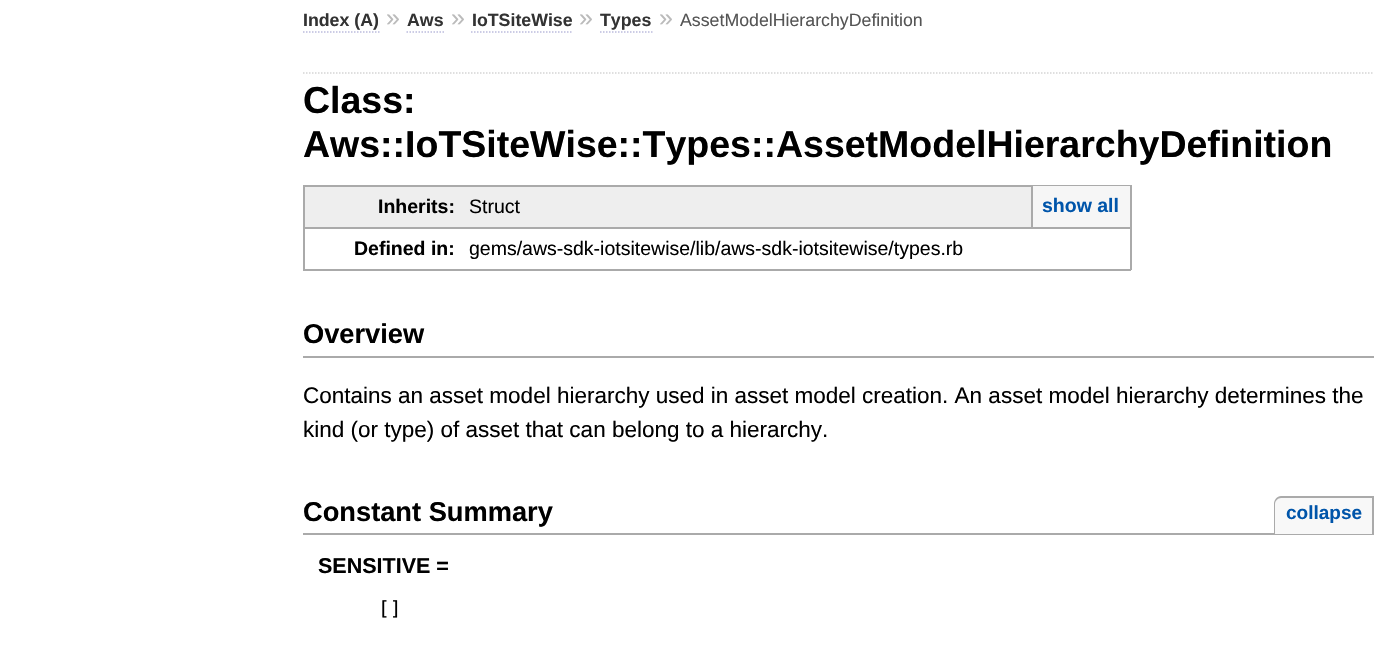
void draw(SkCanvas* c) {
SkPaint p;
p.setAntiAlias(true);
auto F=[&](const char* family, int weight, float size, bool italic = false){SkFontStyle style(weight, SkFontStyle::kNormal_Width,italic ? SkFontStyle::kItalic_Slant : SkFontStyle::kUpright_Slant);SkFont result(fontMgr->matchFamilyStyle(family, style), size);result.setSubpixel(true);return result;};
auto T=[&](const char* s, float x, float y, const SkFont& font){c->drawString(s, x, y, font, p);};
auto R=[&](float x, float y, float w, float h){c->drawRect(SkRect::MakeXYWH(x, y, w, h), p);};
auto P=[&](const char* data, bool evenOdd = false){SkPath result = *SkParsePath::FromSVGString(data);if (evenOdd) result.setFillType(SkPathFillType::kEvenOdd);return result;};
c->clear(0xffffffff);
auto f1 = F("Liberation Sans",700,17.75);
p.setColor(0xff333333);
T("Index (A)",303,26,f1);
p.setStroke(true);
p.setStrokeWidth(1.5);
p.setColor(0xffbbbbdd);
p.setPathEffect(SkDashPathEffect::Make({{1.5f,1.5f}}, 0));
c->drawPath(P("M303 32h76.5"),p);
p.setPathEffect(nullptr);
auto f2 = F("Liberation Sans",400,25);
p.setStroke(false);
p.setColor(0xffbbbbbb);
T("»",386,26,f2);
p.setColor(0xff333333);
T("Aws",407,26,f1);
p.setStroke(true);
p.setColor(0xffbbbbdd);
p.setPathEffect(SkDashPathEffect::Make({{1.5f,1.5f}}, 0));
c->drawPath(P("M406.5 32h37.5"),p);
p.setPathEffect(nullptr);
p.setStroke(false);
p.setColor(0xffbbbbbb);
T("»",451,26,f2);
p.setColor(0xff333333);
T("IoTSiteWise",472,26,f1);
p.setStroke(true);
p.setColor(0xffbbbbdd);
p.setPathEffect(SkDashPathEffect::Make({{1.5f,1.5f}}, 0));
c->drawPath(P("M471 32h102"),p);
p.setPathEffect(nullptr);
p.setStroke(false);
p.setColor(0xffbbbbbb);
T("»",579,26,f2);
p.setColor(0xff333333);
T("Types",600,26,f1);
p.setStroke(true);
p.setColor(0xffbbbbdd);
p.setPathEffect(SkDashPathEffect::Make({{1.5f,1.5f}}, 0));
c->drawPath(P("M600 32h52.5"),p);
p.setPathEffect(nullptr);
p.setStroke(false);
p.setColor(0xffbbbbbb);
T("»",659,26,f2);
auto f3 = F("Liberation Sans",400,17.75);
p.setColor(0xff555555);
T("AssetModelHierarchyDefinition",680,26,f3);
p.setStroke(true);
p.setColor(0xffd5d5d5);
p.setPathEffect(SkDashPathEffect::Make({{1.5f,1.5f}}, 0));
c->drawPath(P("M303 73h1071"),p);
p.setPathEffect(nullptr);
auto f4 = F("Liberation Sans",700,37.5);
p.setStroke(false);
p.setColor(0xff000000);
T("Class:",303,113,f4);
T("Aws::IoTSiteWise::Types::AssetModelHierarchyDefinition",303,157,f4);
p.setColor(0xffeeeeee);
R(305,187,726,40);
p.setColor(0xffaaaaaa);
R(303,185,828,2);
R(303,185,2,42);
auto f5 = F("Liberation Sans",700,19.5);
p.setColor(0xff000000);
T("Inherits:",378,213,f5);
p.setColor(0xffaaaaaa);
R(303,227,828,2);
R(1130,185,2,85);
auto f6 = F("Liberation Sans",400,19.5);
p.setColor(0xff000000);
T("Struct",469,213,f6);
p.setColor(0xfff6f6f6);
R(1033,186,97,41);
p.setColor(0xffaaaaaa);
R(1031,186,2,41);
p.setColor(0xff0055aa);
T("show all",1042,212,f5);
p.setColor(0xffaaaaaa);
R(303,269,167,2);
R(303,227,2,43);
p.setColor(0xff000000);
T("Defined in:",354,255,f5);
p.setColor(0xffaaaaaa);
R(470,269,661,2);
p.setColor(0xff000000);
T("gems/aws-sdk-iotsitewise/lib/aws-sdk-iotsitewise/types.rb",469,255,f6);
p.setColor(0xffaaaaaa);
R(303,356,1071,2);
auto f7 = F("Liberation Sans",700,27.25);
p.setColor(0xff000000);
T("Overview",303,343,f7);
auto f8 = F("Liberation Sans",400,22.5);
T("Contains an asset model hierarchy used in asset model creation. An asset model hierarchy determines the",303,403,f8);
T("kind (or type) of asset that can belong to a hierarchy.",303,437,f8);
p.setColor(0xffaaaaaa);
R(303,533,1071,2);
p.setColor(0xff000000);
T("Constant Summary",303,521,f7);
p.setColor(0xfff8f8f8);
c->drawPath(P("M1282 497h92v37h-100v-29c0-4.5 3.5-8 8-8z"),p);
p.setColor(0xffaaaaaa);
c->drawPath(P("M1281 496h93v38h-100v-30c0-4 3-8 7-8zm0 2h91v36h-97v-30c0-3 3-6 6-6z",true),p);
auto f9 = F("Liberation Sans",700,19);
p.setColor(0xff0055aa);
T("collapse",1286,519,f9);
auto f10 = F("Liberation Sans",700,21.5);
p.setColor(0xff000000);
T("SENSITIVE =",318,573,f10);
auto f11 = F("DejaVu Sans Mono",400,19.5);
T("[]",378,615,f11);
}
